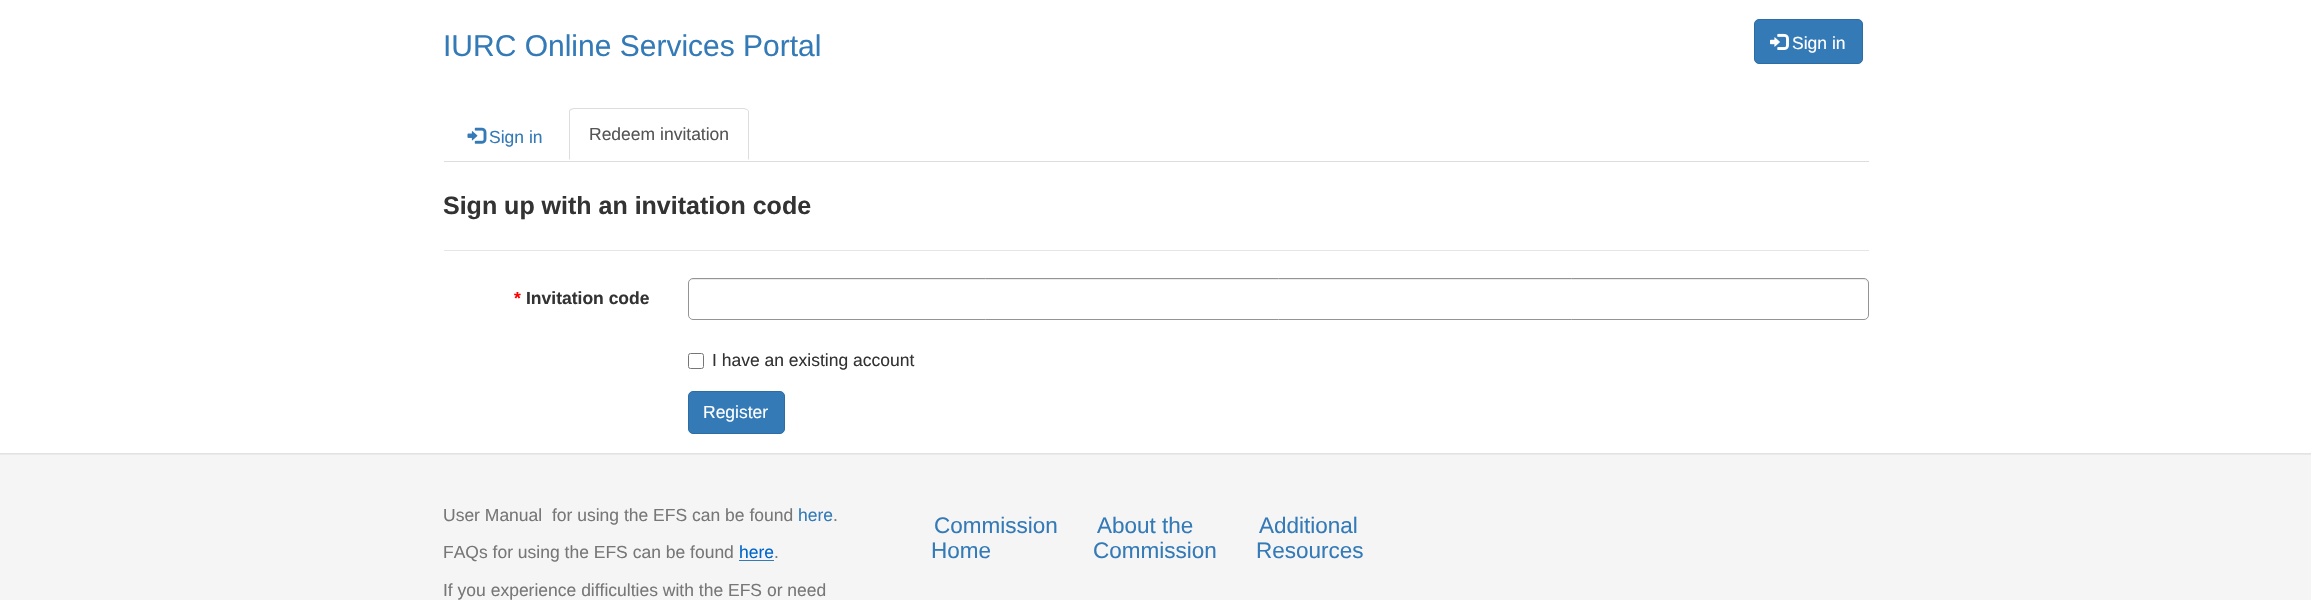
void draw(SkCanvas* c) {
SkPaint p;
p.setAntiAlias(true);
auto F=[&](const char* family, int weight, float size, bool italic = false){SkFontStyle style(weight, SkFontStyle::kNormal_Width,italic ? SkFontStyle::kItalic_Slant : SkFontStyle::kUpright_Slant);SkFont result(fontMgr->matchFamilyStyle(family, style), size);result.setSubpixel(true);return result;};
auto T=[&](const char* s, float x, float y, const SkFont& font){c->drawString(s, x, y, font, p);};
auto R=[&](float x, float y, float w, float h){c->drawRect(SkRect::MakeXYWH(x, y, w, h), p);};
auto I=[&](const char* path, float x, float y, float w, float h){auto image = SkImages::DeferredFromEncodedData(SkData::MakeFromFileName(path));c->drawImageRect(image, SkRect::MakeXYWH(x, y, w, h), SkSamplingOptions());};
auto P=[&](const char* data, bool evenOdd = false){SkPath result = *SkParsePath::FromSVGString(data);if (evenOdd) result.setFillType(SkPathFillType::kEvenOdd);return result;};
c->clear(0xffffffff);
auto f1 = F("Liberation Sans",400,30);
p.setColor(0xff337ab7);
T("IURC Online Services Portal",443,56,f1);
c->drawRoundRect(SkRect::MakeXYWH(1754.5,19.5,108,44),4.5,4.5,p);
p.setStroke(true);
p.setStrokeWidth(1);
p.setColor(0xff2e6da4);
c->drawRoundRect(SkRect::MakeXYWH(1754.5,19.5,108,44),4.5,4.5,p);
I("1.png",1770,33,19,17);
auto f2 = F("Liberation Sans",400,17.5);
p.setStroke(false);
p.setColor(0xffffffff);
T("Sign in",1792,49,f2);
p.setColor(0xffdddddd);
R(444,161,1425,1);
I("2.png",467,127,20,17);
p.setColor(0xff337ab7);
T("Sign in",489,143,f2);
p.setColor(0xffdddddd);
c->drawPath(P("M574 108l-4 1l1 1l3-1h170l3 1v-1l-3-1z"),p);
c->drawPath(P("M747 109l2 2v49l-1-1v-48l-1-1z"),p);
c->drawPath(P("M570 109l-1 2v49l1-1v-48l1-1z"),p);
p.setColor(0xff555555);
T("Redeem invitation",589,140,f2);
p.setColor(0xffe5e5e5);
R(444,250,1425,1);
auto f3 = F("Liberation Sans",700,25);
p.setColor(0xff333333);
T("Sign up with an invitation code",443,214,f3);
auto f4 = F("Liberation Sans",700,17.5);
p.setColor(0xffff0000);
T("*",514,304,f4);
p.setColor(0xff333333);
T("Invitation code",526,304,f4);
p.setColor(0xffececec);
c->drawPath(P("M692 280h1172c2 0 4 2 4 4c0-3-1-5-4-5h-1171c-3 0-4 2-4 5c0-2 1-4 3-4z"),p);
p.setStroke(true);
p.setColor(0xff949494);
c->drawRoundRect(SkRect::MakeXYWH(688.5,278.5,1180,41),4.5,4.5,p);
p.setColor(0xff767676);
c->drawRoundRect(SkRect::MakeXYWH(688.5,353.5,15,15),2,2,p);
p.setStroke(false);
p.setColor(0xff333333);
T("I have an existing account",712,366,f2);
p.setColor(0xff337ab7);
c->drawRoundRect(SkRect::MakeXYWH(688.5,391.5,96,42),4.5,4.5,p);
p.setStroke(true);
p.setColor(0xff2e6da4);
c->drawRoundRect(SkRect::MakeXYWH(688.5,391.5,96,42),4.5,4.5,p);
p.setStroke(false);
p.setColor(0xffffffff);
T("Register",703,418,f2);
p.setColor(0xfff5f5f5);
R(0,455,2311,145);
p.setColor(0xffe9e9e9);
R(0,454,2311,1);
p.setColor(0xffe3e3e3);
R(0,453,2311,1);
p.setColor(0xff777777);
T("User Manual  for using the EFS can be found",443,521,f2);
p.setColor(0xff337ab7);
T("here",798,521,f2);
p.setColor(0xff777777);
T(".",833,521,f2);
T("FAQs for using the EFS can be found",443,558,f2);
p.setColor(0xff0066cc);
T("here",739,558,f2);
p.setColor(0xff337ab7);
R(739,560,35,1);
p.setColor(0xff777777);
T(".",774,558,f2);
T("If you experience difficulties with the EFS or need",443,596,f2);
auto f5 = F("Liberation Sans",400,22.5);
p.setColor(0xff337ab7);
T("Commission",934,533,f5);
T("Home",931,558,f5);
T("About the",1097,533,f5);
T("Commission",1093,558,f5);
T("Additional",1259,533,f5);
T("Resources",1256,558,f5);
}
